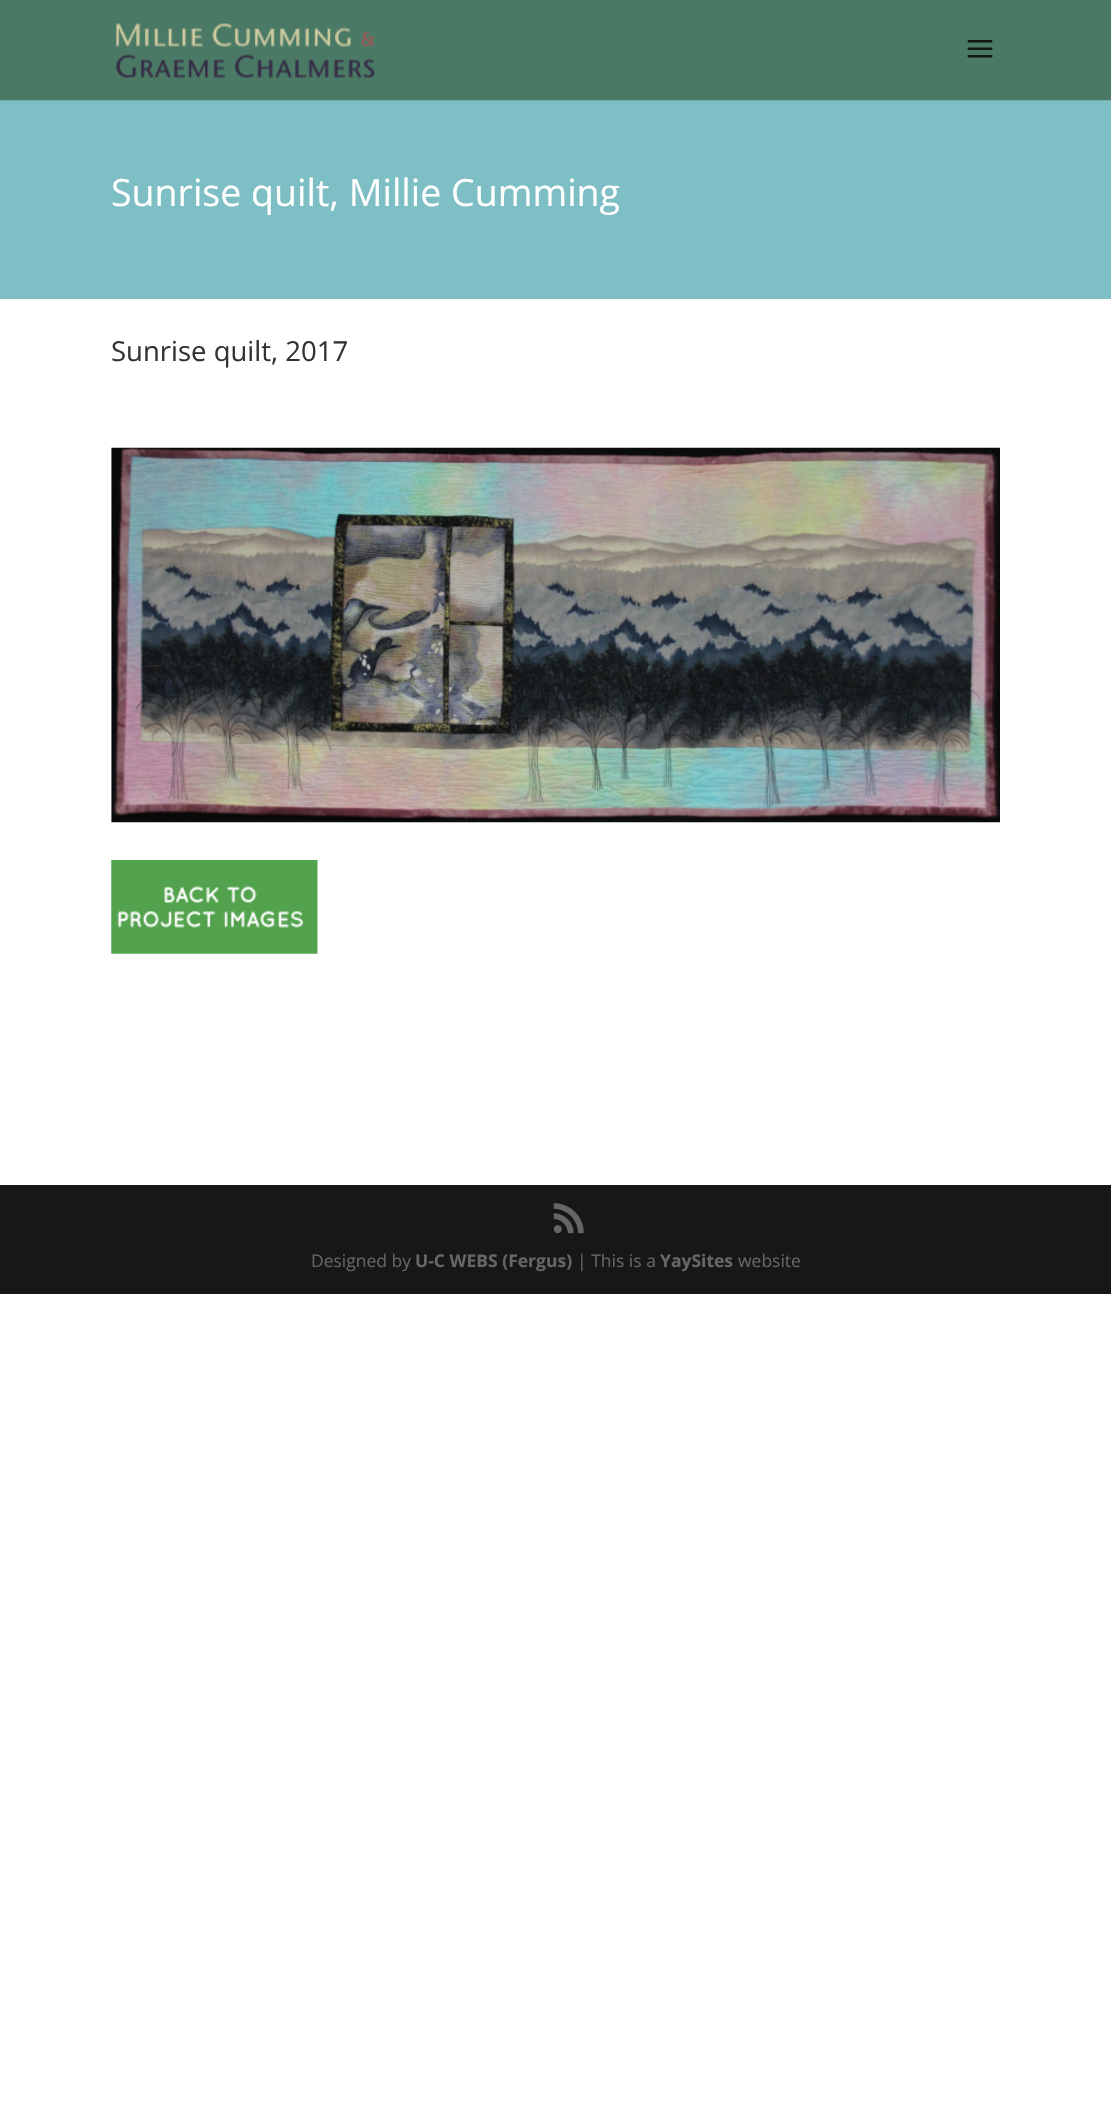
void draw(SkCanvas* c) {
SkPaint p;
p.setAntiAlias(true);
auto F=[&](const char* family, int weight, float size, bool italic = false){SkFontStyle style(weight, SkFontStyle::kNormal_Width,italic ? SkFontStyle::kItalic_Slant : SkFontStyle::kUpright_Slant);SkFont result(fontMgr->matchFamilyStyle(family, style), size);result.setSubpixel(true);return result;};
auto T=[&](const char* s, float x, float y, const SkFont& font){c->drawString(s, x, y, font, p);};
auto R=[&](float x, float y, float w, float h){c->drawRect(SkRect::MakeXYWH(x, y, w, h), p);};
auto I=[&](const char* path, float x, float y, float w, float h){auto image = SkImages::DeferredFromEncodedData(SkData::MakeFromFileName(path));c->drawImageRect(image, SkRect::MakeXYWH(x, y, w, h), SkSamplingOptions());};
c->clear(0xffffffff);
p.setColor(0xff71abb1);
R(0,100,1111,1);
p.setColor(0xff4a7a66);
R(0,0,1111,100);
I("1.png",116,23,259,55);
I("2.png",967,40,26,18);
p.setColor(0xff7ebec5);
R(0,101,1111,198);
auto f1 = F("Open Sans",400,37.5);
p.setColor(0xffffffff);
T("Sunrise quilt, Millie Cumming",111,206,f1);
auto f2 = F("Open Sans",400,27.5);
p.setColor(0xff333333);
T("Sunrise quilt, 2017",111,361,f2);
I("3.png",111,447,889,376);
I("4.png",111,860,207,94);
p.setColor(0xff171717);
R(0,1185,1111,109);
I("5.png",553,1203,31,31);
auto f3 = F("Open Sans",400,17.5);
p.setColor(0xff666666);
T("Designed by",311,1267,f3);
auto f4 = F("Open Sans",700,17.5);
T("U-C WEBS (Fergus)",415,1267,f4);
T("| This is a",577,1267,f3);
T("YaySites",660,1267,f4);
T("website",738,1267,f3);
}
